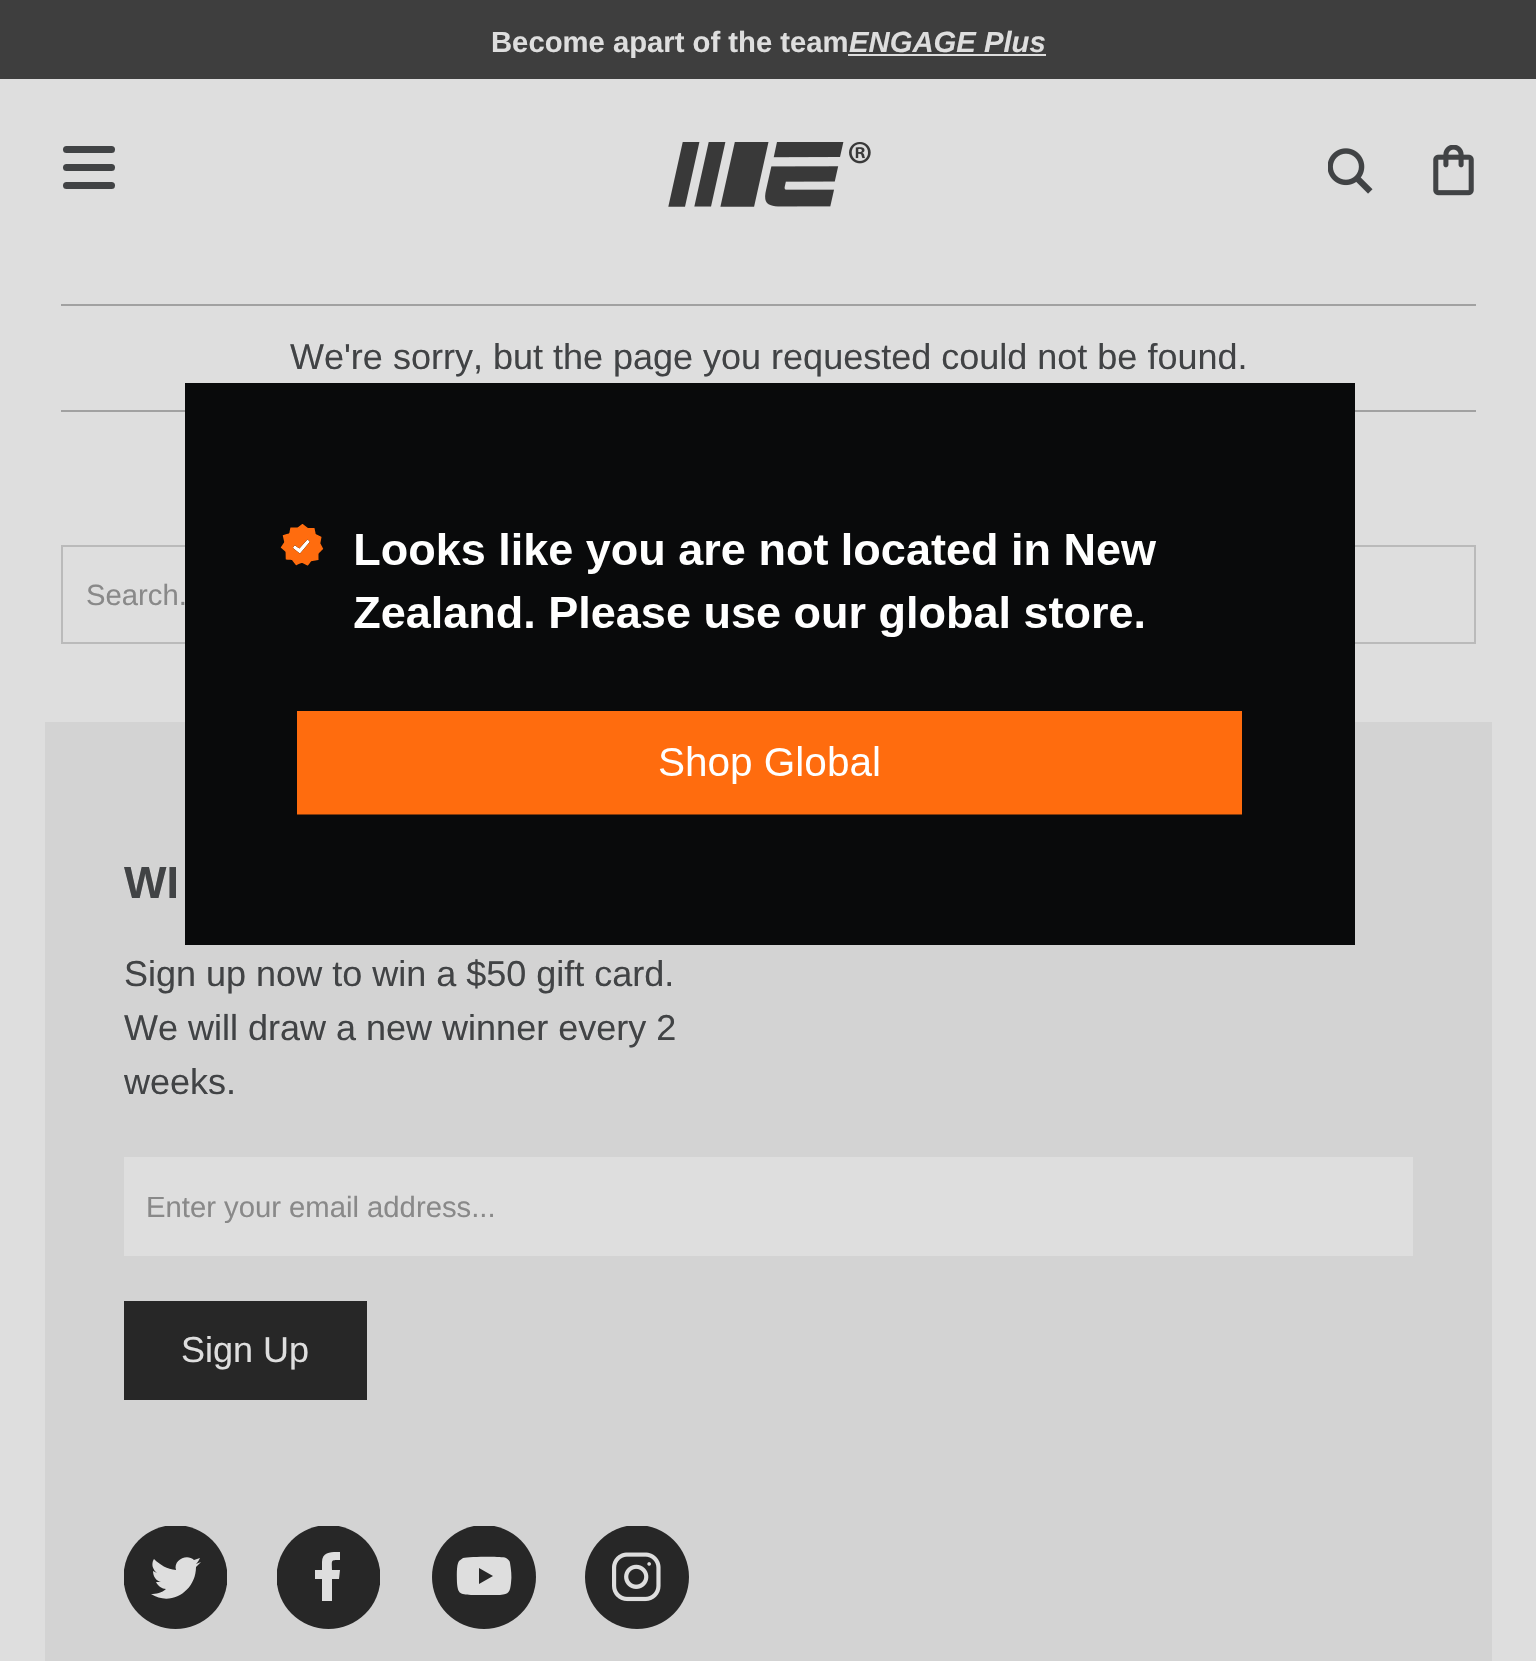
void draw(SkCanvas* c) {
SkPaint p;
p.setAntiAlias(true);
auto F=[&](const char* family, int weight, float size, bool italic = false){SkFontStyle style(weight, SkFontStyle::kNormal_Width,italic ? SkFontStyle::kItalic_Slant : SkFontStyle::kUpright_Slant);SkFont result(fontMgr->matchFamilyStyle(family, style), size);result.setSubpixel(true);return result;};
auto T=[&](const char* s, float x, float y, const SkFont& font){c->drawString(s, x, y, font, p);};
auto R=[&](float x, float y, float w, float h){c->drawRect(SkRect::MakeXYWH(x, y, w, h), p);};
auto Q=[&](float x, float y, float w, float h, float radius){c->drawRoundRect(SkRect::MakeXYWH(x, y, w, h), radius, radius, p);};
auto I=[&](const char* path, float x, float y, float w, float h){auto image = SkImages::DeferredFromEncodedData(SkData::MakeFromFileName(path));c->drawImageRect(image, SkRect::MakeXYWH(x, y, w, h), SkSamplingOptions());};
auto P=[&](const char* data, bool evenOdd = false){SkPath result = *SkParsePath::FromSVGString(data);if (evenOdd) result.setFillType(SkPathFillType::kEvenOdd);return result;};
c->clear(0xffdedede);
p.setColor(0xff3e3e3e);
R(0,0,1536,79);
auto f1 = F("Liberation Sans",700,29.25);
p.setColor(0xffdedede);
T("Become apart of the team",491,52,f1);
auto f2 = F("Liberation Sans",700,29.25,true);
T("ENGAGE Plus",849,52,f2);
R(848,54,198,2);
p.setColor(0xff414345);
Q(63,146,52,7,3.5);
Q(63,164,52,7,3.5);
Q(63,182,52,7,3.5);
I("1.png",668,142,203,65);
I("2.png",1328,148,45,46);
I("3.png",1433,145,41,51);
p.setColor(0xffa1a1a1);
R(61,304,1415,2);
R(61,410,1415,2);
auto f3 = F("Liberation Sans",400,36);
p.setColor(0xff414345);
T("We're sorry, but the page you requested could not be found.",290,369,f3);
p.setStroke(true);
p.setStrokeWidth(2);
p.setColor(0xffbababa);
c->drawRect(SkRect::MakeXYWH(62,546,1413,97),p);
auto f4 = F("Liberation Sans",400,29.25);
p.setStroke(false);
p.setColor(0xff898989);
T("Search.",86,605,f4);
p.setColor(0xffd3d3d3);
R(45,722,1447,939);
p.setColor(0xff090a0b);
R(185,383,1170,562);
I("4.png",280,524,962,291);
auto f5 = F("Liberation Sans",700,45);
p.setColor(0xff414345);
T("WI",124,898,f5);
T("Sign up now to win a $50 gift card.",124,986,f3);
T("We will draw a new winner every 2",124,1040,f3);
T("weeks.",124,1094,f3);
p.setColor(0xffdedede);
R(124,1157,1289,99);
p.setColor(0xff898989);
T("Enter your email address...",146,1217,f4);
p.setColor(0xff272727);
R(124,1301,243,99);
p.setColor(0xffdedede);
T("Sign Up",181,1362,f3);
c->save();
c->clipRect(SkRect::MakeXYWH(124,1526,103,103));
p.setColor(0xff272727);
c->drawCircle(175.5,1577,52,p);
c->restore();
p.setColor(0xffdedede);
c->drawPath(P("M151 1594c20 13 45-3 45-27l5-5l-5 2c2-2 3-4 4-6l-6 2c-7-7-21 0-18 10c-9-1-16-5-22-11c0 0-5 7 3 14l-4-2c0 5 3 10 8 11h-5c2 4 6 7 10 7c-4 4-10 5-15 5z",true),p);
c->save();
c->clipRect(SkRect::MakeXYWH(277,1526,103,103));
p.setColor(0xff272727);
c->drawCircle(328.5,1577,52,p);
c->restore();
p.setColor(0xffdedede);
c->drawPath(P("M322 1562v8h-7v9h7v22h10v-22h7l1-9h-8c0-10-2-10 8-10v-8c-7 0-18-1-18 10z",true),p);
c->save();
c->clipRect(SkRect::MakeXYWH(432,1526,104,103));
p.setColor(0xff272727);
c->drawCircle(484,1577,52,p);
c->restore();
p.setColor(0xffdedede);
c->drawPath(P("M510 1563c0-2-2-4-4-5c-6-2-37-1-43 0l-4 3c-3 4-2 17-2 22c1 11 3 11 14 12h16h13c9-1 10-3 11-12c1-7 0-14-1-20zm-31 21l14-8l-14-8z",true),p);
I("5.png",585,1526,104,103);
}
